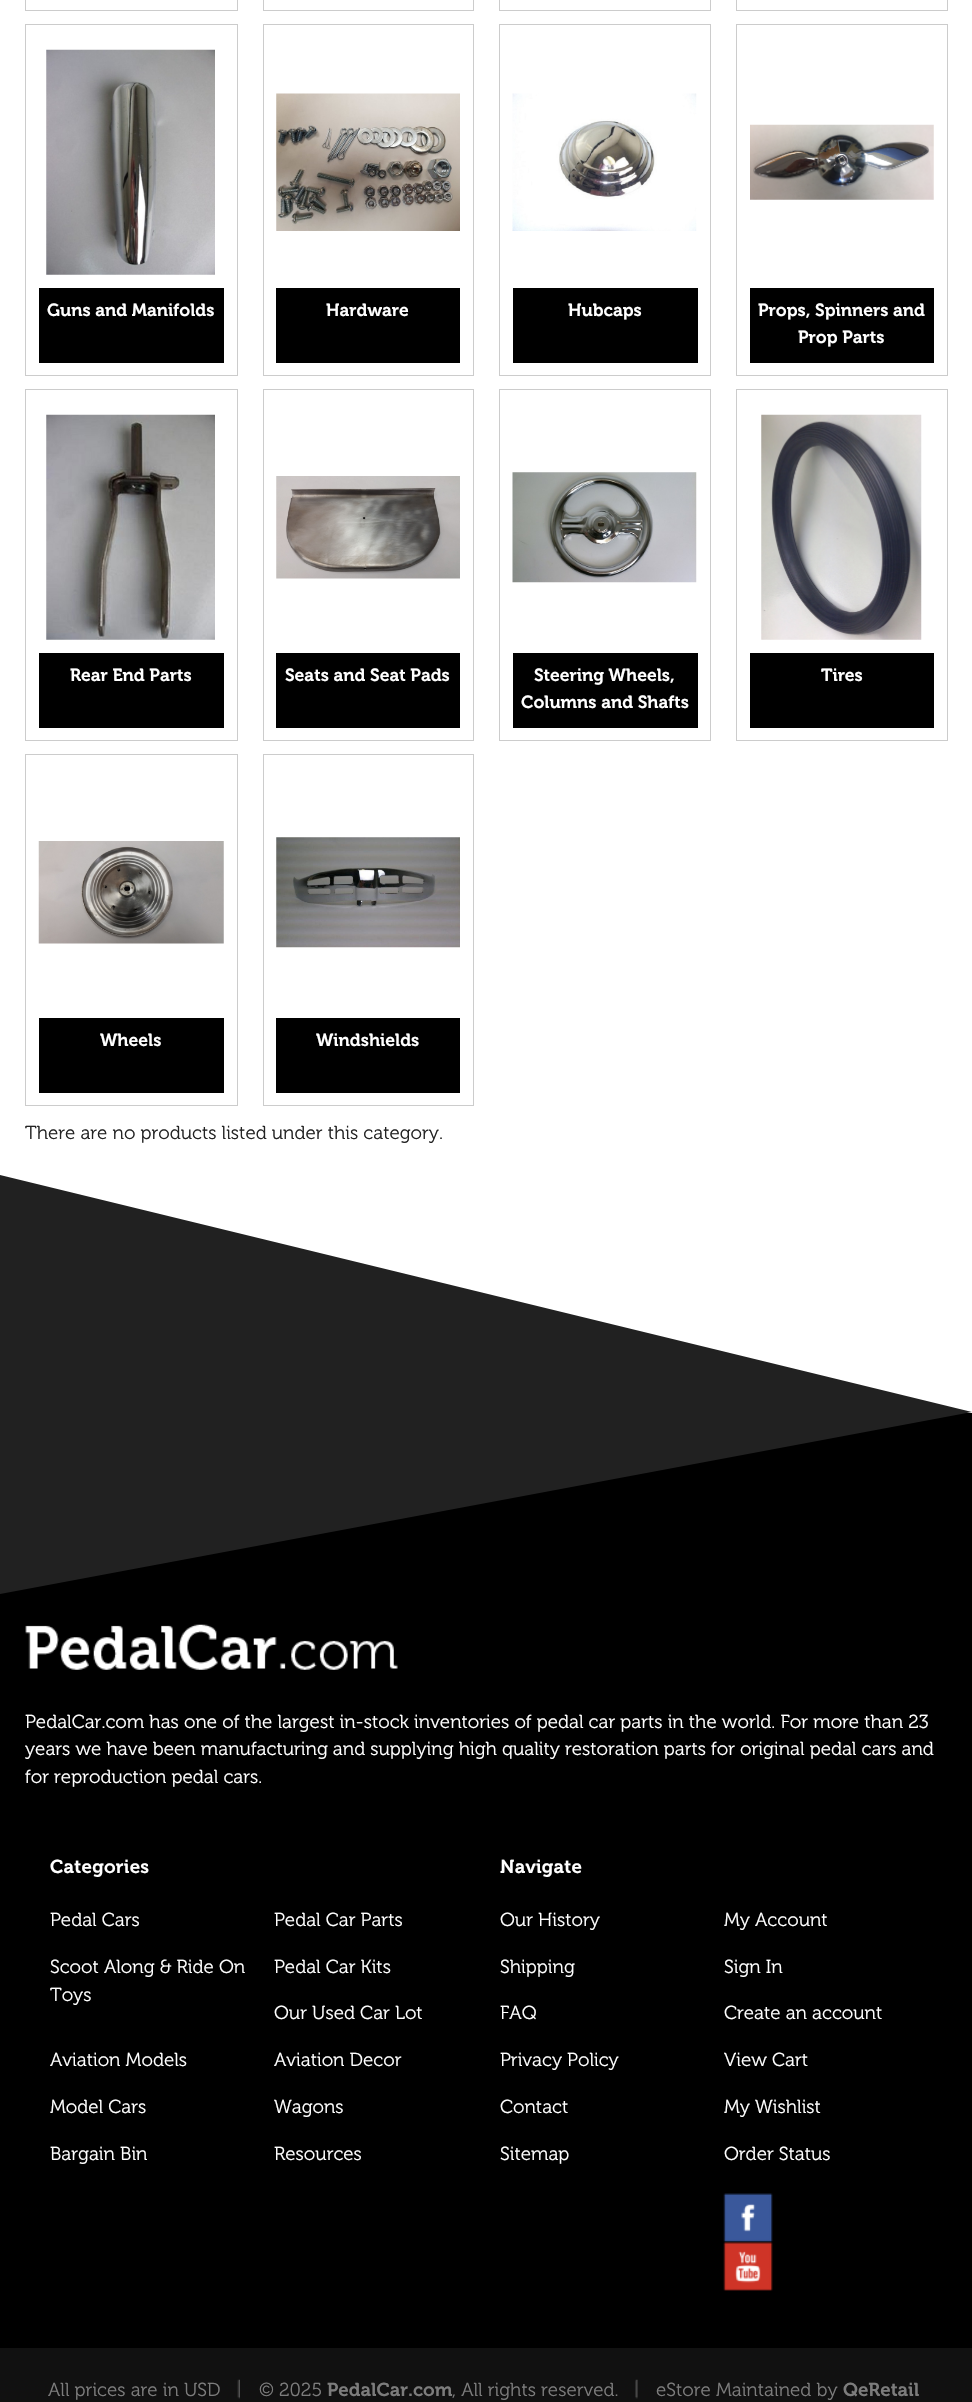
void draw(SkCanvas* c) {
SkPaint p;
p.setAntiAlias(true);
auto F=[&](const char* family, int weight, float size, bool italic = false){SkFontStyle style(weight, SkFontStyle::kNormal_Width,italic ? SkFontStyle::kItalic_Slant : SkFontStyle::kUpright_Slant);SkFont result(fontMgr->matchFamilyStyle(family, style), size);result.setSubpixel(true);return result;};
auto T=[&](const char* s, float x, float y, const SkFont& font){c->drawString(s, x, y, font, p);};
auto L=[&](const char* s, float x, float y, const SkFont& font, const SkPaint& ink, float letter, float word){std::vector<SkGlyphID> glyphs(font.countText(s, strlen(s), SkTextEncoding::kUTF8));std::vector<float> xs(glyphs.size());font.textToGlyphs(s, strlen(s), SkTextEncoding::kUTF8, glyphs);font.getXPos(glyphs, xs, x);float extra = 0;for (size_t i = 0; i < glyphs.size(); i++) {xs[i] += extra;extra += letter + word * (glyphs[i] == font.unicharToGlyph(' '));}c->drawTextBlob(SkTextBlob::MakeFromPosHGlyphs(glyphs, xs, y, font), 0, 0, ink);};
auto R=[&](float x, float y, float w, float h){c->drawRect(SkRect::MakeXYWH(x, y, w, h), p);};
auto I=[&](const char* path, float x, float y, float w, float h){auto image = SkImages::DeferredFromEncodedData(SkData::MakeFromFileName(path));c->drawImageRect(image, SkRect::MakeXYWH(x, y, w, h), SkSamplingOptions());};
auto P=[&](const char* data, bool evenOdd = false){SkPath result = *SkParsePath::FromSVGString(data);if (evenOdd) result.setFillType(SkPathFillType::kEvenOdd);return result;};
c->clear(0xffffffff);
p.setStroke(true);
p.setStrokeWidth(1);
p.setColor(0xffcccccc);
c->drawRect(SkRect::MakeXYWH(25.5,-.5,212,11),p);
c->drawRect(SkRect::MakeXYWH(263.5,-.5,210,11),p);
c->drawRect(SkRect::MakeXYWH(499.5,-.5,211,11),p);
c->drawRect(SkRect::MakeXYWH(736.5,-.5,211,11),p);
c->drawRect(SkRect::MakeXYWH(25.5,24.5,212,351),p);
I("1.png",46,49,169,226);
p.setStroke(false);
p.setColor(0xff000000);
R(39,288,185,75);
auto f1 = F("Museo",600,17.5);
p.setColor(0xffffffff);
T("Guns and Manifolds",47,316,f1);
p.setStroke(true);
p.setColor(0xffcccccc);
c->drawRect(SkRect::MakeXYWH(263.5,24.5,210,351),p);
I("2.png",276,93,184,138);
p.setStroke(false);
p.setColor(0xff000000);
R(276,288,184,75);
p.setColor(0xffffffff);
T("Hardware",326,316,f1);
p.setStroke(true);
p.setColor(0xffcccccc);
c->drawRect(SkRect::MakeXYWH(499.5,24.5,211,351),p);
I("3.png",512,93,185,138);
p.setStroke(false);
p.setColor(0xff000000);
R(513,288,185,75);
p.setColor(0xffffffff);
T("Hubcaps",568,316,f1);
p.setStroke(true);
p.setColor(0xffcccccc);
c->drawRect(SkRect::MakeXYWH(736.5,24.5,211,351),p);
I("4.png",750,124,184,76);
p.setStroke(false);
p.setColor(0xff000000);
R(750,288,184,75);
p.setColor(0xffffffff);
T("Props, Spinners and",758,316,f1);
T("Prop Parts",798,343,f1);
p.setStroke(true);
p.setColor(0xffcccccc);
c->drawRect(SkRect::MakeXYWH(25.5,389.5,212,351),p);
I("5.png",46,414,169,226);
p.setStroke(false);
p.setColor(0xff000000);
R(39,653,185,75);
p.setColor(0xffffffff);
T("Rear End Parts",70,681,f1);
p.setStroke(true);
p.setColor(0xffcccccc);
c->drawRect(SkRect::MakeXYWH(263.5,389.5,210,351),p);
I("6.png",276,476,184,103);
p.setStroke(false);
p.setColor(0xff000000);
R(276,653,184,75);
p.setColor(0xffffffff);
T("Seats and Seat Pads",285,681,f1);
p.setStroke(true);
p.setColor(0xffcccccc);
c->drawRect(SkRect::MakeXYWH(499.5,389.5,211,351),p);
I("7.png",512,472,185,111);
p.setStroke(false);
p.setColor(0xff000000);
R(513,653,185,75);
p.setColor(0xffffffff);
T("Steering Wheels,",534,681,f1);
T("Columns and Shafts",521,708,f1);
p.setStroke(true);
p.setColor(0xffcccccc);
c->drawRect(SkRect::MakeXYWH(736.5,389.5,211,351),p);
I("8.png",761,414,161,226);
p.setStroke(false);
p.setColor(0xff000000);
R(750,653,184,75);
p.setColor(0xffffffff);
T("Tires",821,681,f1);
p.setStroke(true);
p.setColor(0xffcccccc);
c->drawRect(SkRect::MakeXYWH(25.5,754.5,212,351),p);
I("9.png",38,841,186,103);
p.setStroke(false);
p.setColor(0xff000000);
R(39,1018,185,75);
p.setColor(0xffffffff);
T("Wheels",100,1046,f1);
p.setStroke(true);
p.setColor(0xffcccccc);
c->drawRect(SkRect::MakeXYWH(263.5,754.5,210,351),p);
I("10.png",276,837,184,111);
p.setStroke(false);
p.setColor(0xff000000);
R(276,1018,184,75);
p.setColor(0xffffffff);
T("Windshields",316,1046,f1);
auto f2 = F("Museo",300,18.75);
p.setColor(0xff232323);
T("There are no products listed under this category.",25,1139,f2);
p.setColor(0xff212121);
c->drawPath(P("M972 1412h-972v-237z"),p);
p.setColor(0xff000000);
R(0,1413,972,935);
p.setColor(0xff212121);
c->drawPath(P("M0 1412h972l-972 182z"),p);
I("11.png",25,1624,373,46);
p.setColor(0xffffffff);
T("PedalCar.com has one of the largest in-stock inventories of pedal car parts in the world. For more than 23",25,1728,f2);
T("years we have been manufacturing and supplying high quality restoration parts for original pedal cars and",25,1755,f2);
T("for reproduction pedal cars.",25,1783,f2);
auto f3 = F("Museo",600,18.75);
L("Categories",50,1873,f3,p,.25,0);
T("Pedal Cars",50,1926,f2);
T("Pedal Car Parts",274,1926,f2);
T("Scoot Along & Ride On",50,1973,f2);
T("Toys",50,2001,f2);
T("Pedal Car Kits",274,1973,f2);
T("Our Used Car Lot",274,2019,f2);
T("Aviation Models",50,2066,f2);
T("Aviation Decor",274,2066,f2);
T("Model Cars",50,2113,f2);
T("Wagons",274,2113,f2);
T("Bargain Bin",50,2160,f2);
T("Resources",274,2160,f2);
L("Navigate",500,1873,f3,p,.25,0);
T("Our History",500,1926,f2);
T("Shipping",500,1973,f2);
T("FAQ",500,2019,f2);
T("Privacy Policy",500,2066,f2);
T("Contact",500,2113,f2);
T("Sitemap",500,2160,f2);
T("My Account",724,1926,f2);
T("Sign In",724,1973,f2);
T("Create an account",724,2019,f2);
T("View Cart",724,2066,f2);
T("My Wishlist",724,2113,f2);
T("Order Status",724,2160,f2);
I("12.png",723,2193,50,50);
I("13.png",723,2242,50,49);
p.setColor(0xff111111);
R(0,2348,972,54);
p.setColor(0xff7c7c7c);
T("All prices are in USD",48,2396,f2);
I("14.png",237,2379,3,20);
T("© 2025",259,2396,f2);
T("PedalCar.com",327,2396,f3);
T(", All rights reserved.",452,2396,f2);
I("15.png",635,2379,3,20);
T("eStore Maintained by",656,2396,f2);
T("QeRetail",843,2396,f3);
}
